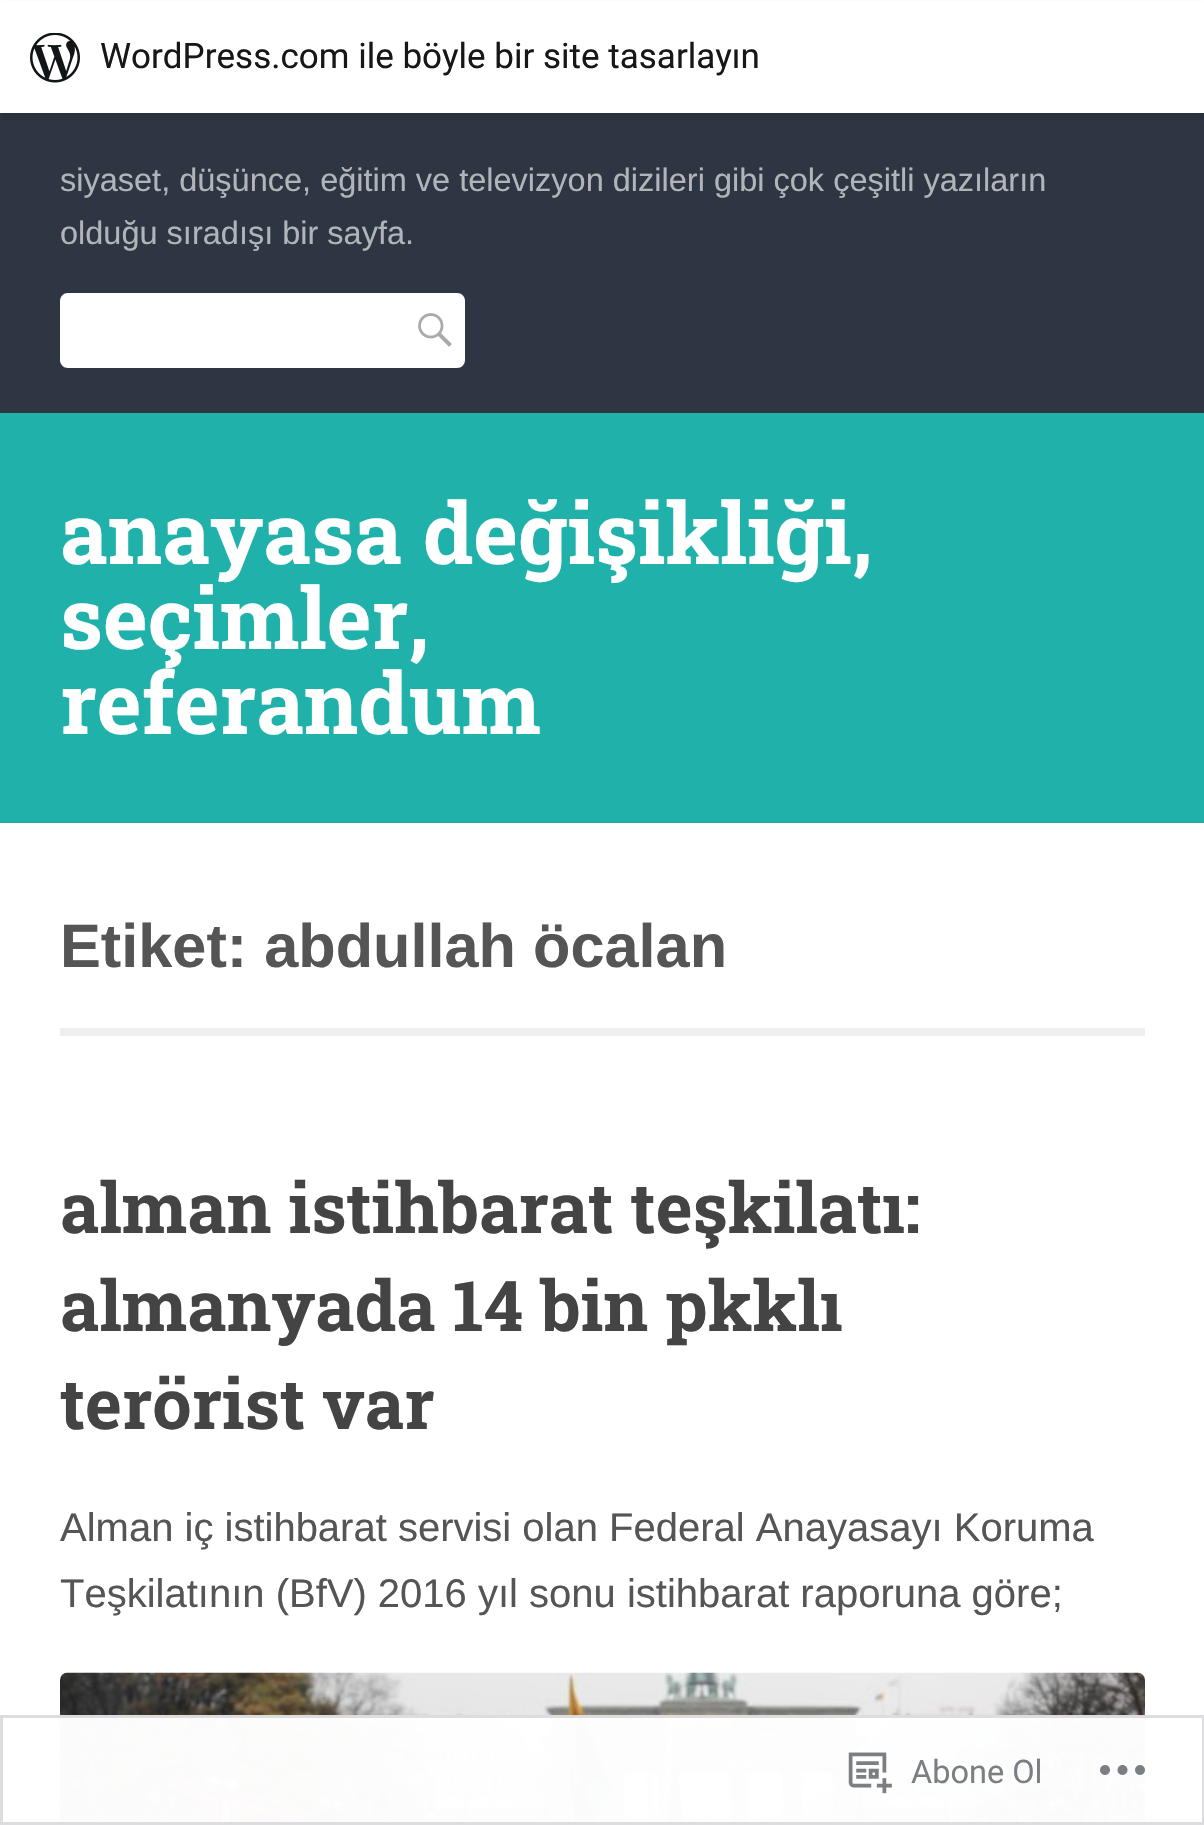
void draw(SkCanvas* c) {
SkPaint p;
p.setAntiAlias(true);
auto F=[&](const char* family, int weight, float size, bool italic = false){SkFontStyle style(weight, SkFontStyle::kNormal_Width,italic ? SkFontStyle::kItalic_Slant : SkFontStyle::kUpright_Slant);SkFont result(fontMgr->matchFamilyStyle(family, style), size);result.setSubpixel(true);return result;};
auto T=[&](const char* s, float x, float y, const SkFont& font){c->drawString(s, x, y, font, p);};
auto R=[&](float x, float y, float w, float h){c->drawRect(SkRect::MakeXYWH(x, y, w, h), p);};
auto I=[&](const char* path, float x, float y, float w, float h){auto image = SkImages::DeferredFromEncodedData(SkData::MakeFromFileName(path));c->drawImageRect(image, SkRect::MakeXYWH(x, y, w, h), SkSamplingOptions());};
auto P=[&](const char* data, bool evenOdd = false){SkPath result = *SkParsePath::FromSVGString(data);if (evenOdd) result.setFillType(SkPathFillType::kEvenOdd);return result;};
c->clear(0xffffffff);
p.setColor(0xff2d3642);
R(0,113,1204,300);
p.setColor(0x0d000000);
p.setMaskFilter(SkMaskFilter::MakeBlur(kNormal_SkBlurStyle, 2.5));
c->drawRect(SkRect::MakeXYWH(0,3,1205,112),p);
p.setMaskFilter(nullptr);
p.setColor(0x14000000);
c->drawPath(P("M3 112v8h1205v-112h-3v104z"),p);
p.setColor(0xffffffff);
R(0,1,1204,112);
I("1.png",30,33,50,50);
auto f1 = F("Roboto",400,35);
p.setColor(0xff171717);
T("WordPress.com ile böyle bir site tasarlayın",100,68,f1);
auto f2 = F("Arimo",400,32.5);
p.setColor(0xffb1b5b9);
T("siyaset, düşünce, eğitim ve televizyon dizileri gibi çok çeşitli yazıların",60,191,f2);
T("olduğu sıradışı bir sayfa.",60,244,f2);
p.setColor(0xffffffff);
c->drawPath(P("M68 293h317v75h-317c-4.5 0-8-3.5-8-8v-59c0-4.5 3.5-8 8-8z"),p);
c->drawPath(P("M385 293h72c4.5 0 8 3.5 8 8v59c0 4.5-3.5 8-8 8h-72z"),p);
I("2.png",418,313,34,34);
p.setColor(0xff20b2aa);
R(0,413,1204,410);
auto f3 = F("Roboto Slab",700,85);
p.setColor(0xffffffff);
T("anayasa değişikliği,",60,564,f3);
T("seçimler,",60,649,f3);
T("referandum",60,734,f3);
p.setColor(0xffeeeeee);
R(60,1028,1085,8);
auto f4 = F("Arimo",700,61.25);
p.setColor(0xff555555);
T("Etiket: abdullah öcalan",60,967,f4);
auto f5 = F("Roboto Slab",700,70);
p.setColor(0xff444444);
T("alman istihbarat teşkilatı:",60,1233,f5);
T("almanyada 14 bin pkklı",60,1331,f5);
T("terörist var",60,1429,f5);
auto f6 = F("Arimo",400,40);
p.setColor(0xff555555);
T("Alman iç istihbarat servisi olan Federal Anayasayı Koruma",60,1541,f6);
T("Teşkilatının (BfV) 2016 yıl sonu istihbarat raporuna göre;",60,1607,f6);
I("3.png",60,1672,1085,153);
p.setColor(0xfaffffff);
R(60,1715,1085,110);
p.setStroke(true);
p.setStrokeWidth(3);
p.setColor(0xfadcdcde);
c->drawRect(SkRect::MakeXYWH(1.5,1716.5,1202,107),p);
I("4.png",848,1752,44,42);
auto f7 = F("Roboto",400,32.5);
p.setStroke(false);
p.setColor(0xff7b7f84);
T("Abone Ol",911,1783,f7);
I("5.png",1100,1765,45,10);
}
